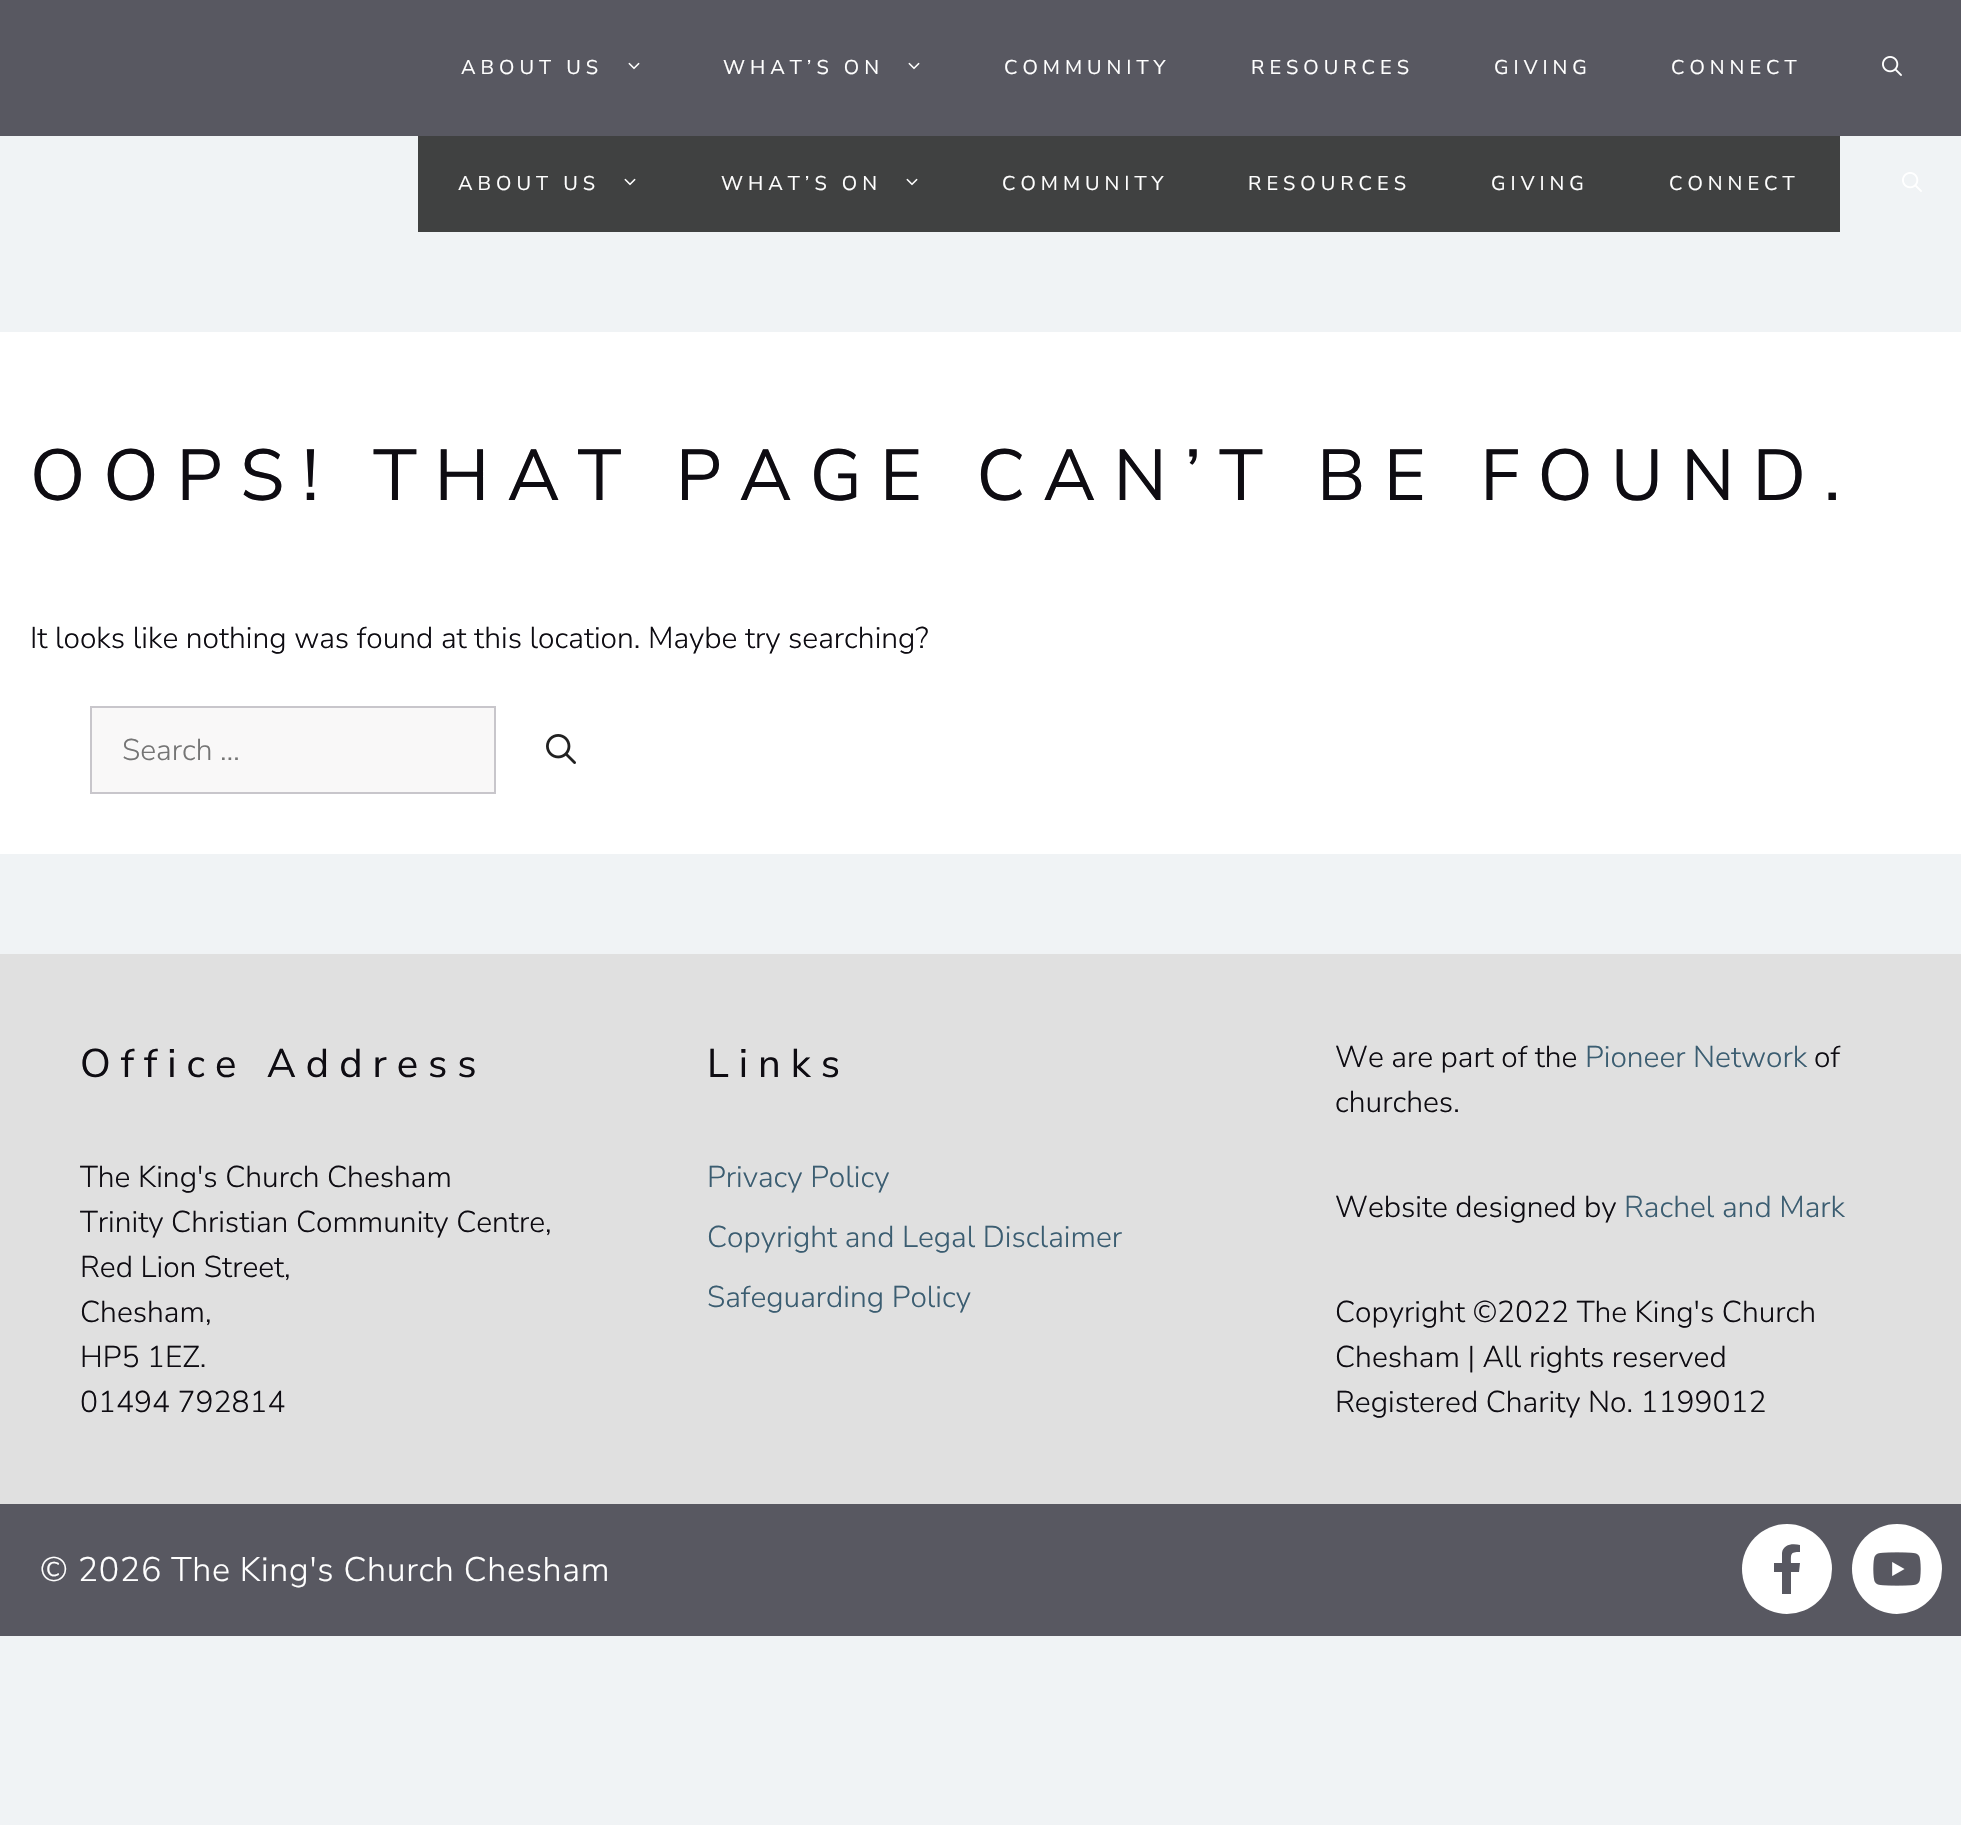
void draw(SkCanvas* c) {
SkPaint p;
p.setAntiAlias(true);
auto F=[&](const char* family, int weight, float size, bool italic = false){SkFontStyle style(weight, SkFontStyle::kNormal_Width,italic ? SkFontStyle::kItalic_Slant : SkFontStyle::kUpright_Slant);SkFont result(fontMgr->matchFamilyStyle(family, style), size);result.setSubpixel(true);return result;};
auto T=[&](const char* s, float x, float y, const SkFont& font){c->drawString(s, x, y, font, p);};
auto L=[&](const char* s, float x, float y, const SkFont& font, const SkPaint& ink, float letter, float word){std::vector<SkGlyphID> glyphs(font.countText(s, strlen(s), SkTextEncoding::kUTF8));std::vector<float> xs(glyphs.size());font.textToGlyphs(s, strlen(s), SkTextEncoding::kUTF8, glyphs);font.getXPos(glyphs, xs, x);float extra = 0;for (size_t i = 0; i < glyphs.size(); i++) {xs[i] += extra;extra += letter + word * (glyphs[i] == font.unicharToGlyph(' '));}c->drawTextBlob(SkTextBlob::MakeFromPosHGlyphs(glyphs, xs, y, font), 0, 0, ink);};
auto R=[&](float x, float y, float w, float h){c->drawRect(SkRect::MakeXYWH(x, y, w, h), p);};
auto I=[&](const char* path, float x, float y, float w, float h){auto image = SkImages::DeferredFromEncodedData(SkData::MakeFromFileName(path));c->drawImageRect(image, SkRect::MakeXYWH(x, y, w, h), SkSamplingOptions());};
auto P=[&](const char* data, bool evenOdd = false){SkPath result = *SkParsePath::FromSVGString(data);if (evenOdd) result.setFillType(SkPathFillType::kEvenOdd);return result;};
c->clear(0xfff0f3f5);
p.setColor(0xff585861);
R(0,0,1961,136);
auto f1 = F("Nunito Sans",400,20);
p.setColor(0xffffffff);
L("ABOUT US",461,74,f1,p,5,0);
I("1.png",628,62,12,8);
L("WHAT’S ON",723,74,f1,p,5,0);
I("1.png",908,62,12,8);
L("COMMUNITY",1004,74,f1,p,5,0);
L("RESOURCES",1251,74,f1,p,5,0);
L("GIVING",1494,74,f1,p,5,0);
L("CONNECT",1671,74,f1,p,5,0);
I("2.png",1882,56,20,20);
p.setColor(0xff404141);
R(418,136,1422,96);
p.setColor(0xffffffff);
L("ABOUT US",458,190,f1,p,5,0);
I("3.png",624,178,12,8);
L("WHAT’S ON",721,190,f1,p,5,0);
I("3.png",906,178,12,8);
L("COMMUNITY",1002,190,f1,p,5,0);
L("RESOURCES",1248,190,f1,p,5,0);
L("GIVING",1491,190,f1,p,5,0);
L("CONNECT",1669,190,f1,p,5,0);
I("4.png",1902,172,20,20);
R(0,332,1961,522);
auto f2 = F("Nunito Sans",400,72);
p.setColor(0xff0e0c12);
L("OOPS! THAT PAGE CAN’T BE FOUND.",30,500,f2,p,18,0);
auto f3 = F("Nunito Sans",300,30);
T("It looks like nothing was found at this location. Maybe try searching?",30,648,f3);
p.setColor(0xfff9f8f8);
c->drawRect(SkRect::MakeXYWH(91,707,404,86),p);
p.setStroke(true);
p.setStrokeWidth(2);
p.setColor(0xffc8c6cb);
c->drawRect(SkRect::MakeXYWH(91,707,404,86),p);
p.setStroke(false);
p.setColor(0xff757575);
T("Search …",122,760,f3);
I("5.png",546,734,30,30);
p.setColor(0xffe0e0e0);
R(0,954,1961,550);
auto f4 = F("Nunito Sans",400,40);
p.setColor(0xff0e0c12);
L("Office Address",80,1077,f4,p,10,0);
T("The King's Church Chesham",80,1187,f3);
T("Trinity Christian Community Centre,",80,1232,f3);
T("Red Lion Street,",80,1277,f3);
T("Chesham,",80,1322,f3);
T("HP5 1EZ.",80,1367,f3);
T("01494 792814",80,1412,f3);
L("Links",707,1077,f4,p,10,0);
p.setColor(0xff3b5d71);
T("Privacy Policy",707,1187,f3);
T("Copyright and Legal Disclaimer",707,1247,f3);
T("Safeguarding Policy",707,1307,f3);
p.setColor(0xff0e0c12);
T("We are part of the",1335,1067,f3);
p.setColor(0xff3b5d71);
T("Pioneer Network",1585,1067,f3);
p.setColor(0xff0e0c12);
T("of",1814,1067,f3);
T("churches.",1335,1112,f3);
T("Website designed by",1335,1217,f3);
p.setColor(0xff3b5d71);
T("Rachel and Mark",1624,1217,f3);
p.setColor(0xff0e0c12);
T("Copyright ©2022 The King's Church",1335,1322,f3);
T("Chesham | All rights reserved",1335,1367,f3);
T("Registered Charity No. 1199012",1335,1412,f3);
p.setColor(0xff585861);
R(0,1504,1961,132);
auto f5 = F("Nunito Sans",300,34);
p.setColor(0xffffffff);
L("© 2026 The King's Church Chesham",40,1581,f5,p,.7,0);
c->drawCircle(1787,1569,45,p);
p.setColor(0xff585861);
c->drawPath(P("M1799 1572l1-9h-9c0-9-1-11 9-11v-7c-7-2-17-1-18 8v10h-8v9h8v22h9v-22z"),p);
p.setColor(0xffffffff);
c->drawCircle(1897,1569,45,p);
I("6.png",1873,1552,48,34);
}
